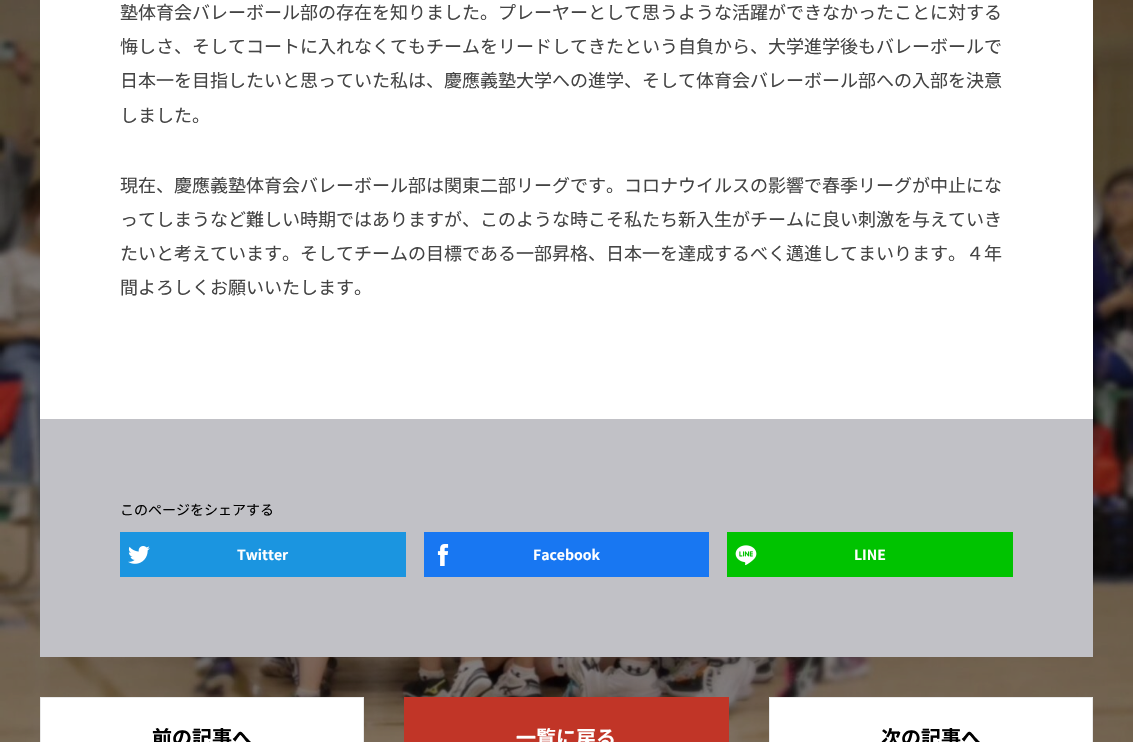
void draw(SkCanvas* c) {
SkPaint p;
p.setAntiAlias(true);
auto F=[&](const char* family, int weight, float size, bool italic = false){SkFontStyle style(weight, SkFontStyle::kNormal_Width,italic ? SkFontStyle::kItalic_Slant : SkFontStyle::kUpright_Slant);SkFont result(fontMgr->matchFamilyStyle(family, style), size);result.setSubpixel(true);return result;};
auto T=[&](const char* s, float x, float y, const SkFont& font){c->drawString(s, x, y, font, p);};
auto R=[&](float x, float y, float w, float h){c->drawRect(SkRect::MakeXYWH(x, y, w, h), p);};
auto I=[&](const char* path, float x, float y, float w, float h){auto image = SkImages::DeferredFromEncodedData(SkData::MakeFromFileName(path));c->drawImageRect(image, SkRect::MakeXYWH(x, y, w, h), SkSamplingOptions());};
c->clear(0xffffffff);
I("1.png",0,0,1133,742);
p.setColor(0xffffffff);
R(40,0,1053,419);
auto f1 = F("Noto Sans JP",400,18);
p.setColor(0xff444444);
T("塾体育会バレーボール部の存在を知りました。プレーヤーとして思うような活躍ができなかったことに対する",120,19,f1);
T("悔しさ、そしてコートに入れなくてもチームをリードしてきたという自負から、大学進学後もバレーボールで",120,53,f1);
T("日本一を目指したいと思っていた私は、慶應義塾大学への進学、そして体育会バレーボール部への入部を決意",120,87,f1);
T("しました。",120,122,f1);
T("現在、慶應義塾体育会バレーボール部は関東二部リーグです。コロナウイルスの影響で春季リーグが中止にな",120,192,f1);
T("ってしまうなど難しい時期ではありますが、このような時こそ私たち新入生がチームに良い刺激を与えていき",120,226,f1);
T("たいと考えています。そしてチームの目標である一部昇格、日本一を達成するべく邁進してまいります。４年",120,260,f1);
T("間よろしくお願いいたします。",120,294,f1);
p.setColor(0xffc1c1c6);
R(40,419,1053,238);
auto f2 = F("Noto Sans JP",400,14);
p.setColor(0xff000000);
T("このページをシェアする",120,515,f2);
p.setColor(0xff1b95e0);
R(120,532,286,45);
I("2.png",128,546,22,18);
auto f3 = F("Noto Sans JP",700,14);
p.setColor(0xffffffff);
T("Twitter",237,560,f3);
p.setColor(0xff1877f2);
R(424,532,285,45);
I("3.png",437,544,12,22);
p.setColor(0xffffffff);
T("Facebook",533,560,f3);
p.setColor(0xff00c300);
R(727,532,286,45);
I("4.png",735,545,22,21);
p.setColor(0xffffffff);
T("LINE",854,560,f3);
c->drawRect(SkRect::MakeXYWH(40.5,697.5,323,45),p);
p.setStroke(true);
p.setStrokeWidth(1);
p.setColor(0xffeaeaea);
c->drawRect(SkRect::MakeXYWH(40.5,697.5,323,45),p);
auto f4 = F("Noto Sans JP",700,20);
p.setStroke(false);
p.setColor(0xff000000);
T("前の記事へ",152,745,f4);
p.setColor(0xffc13527);
R(404,697,325,45);
p.setColor(0xffffffff);
T("一覧に戻る",516,745,f4);
c->drawRect(SkRect::MakeXYWH(769.5,697.5,323,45),p);
p.setStroke(true);
p.setColor(0xffeaeaea);
c->drawRect(SkRect::MakeXYWH(769.5,697.5,323,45),p);
p.setStroke(false);
p.setColor(0xff000000);
T("次の記事へ",881,745,f4);
}
